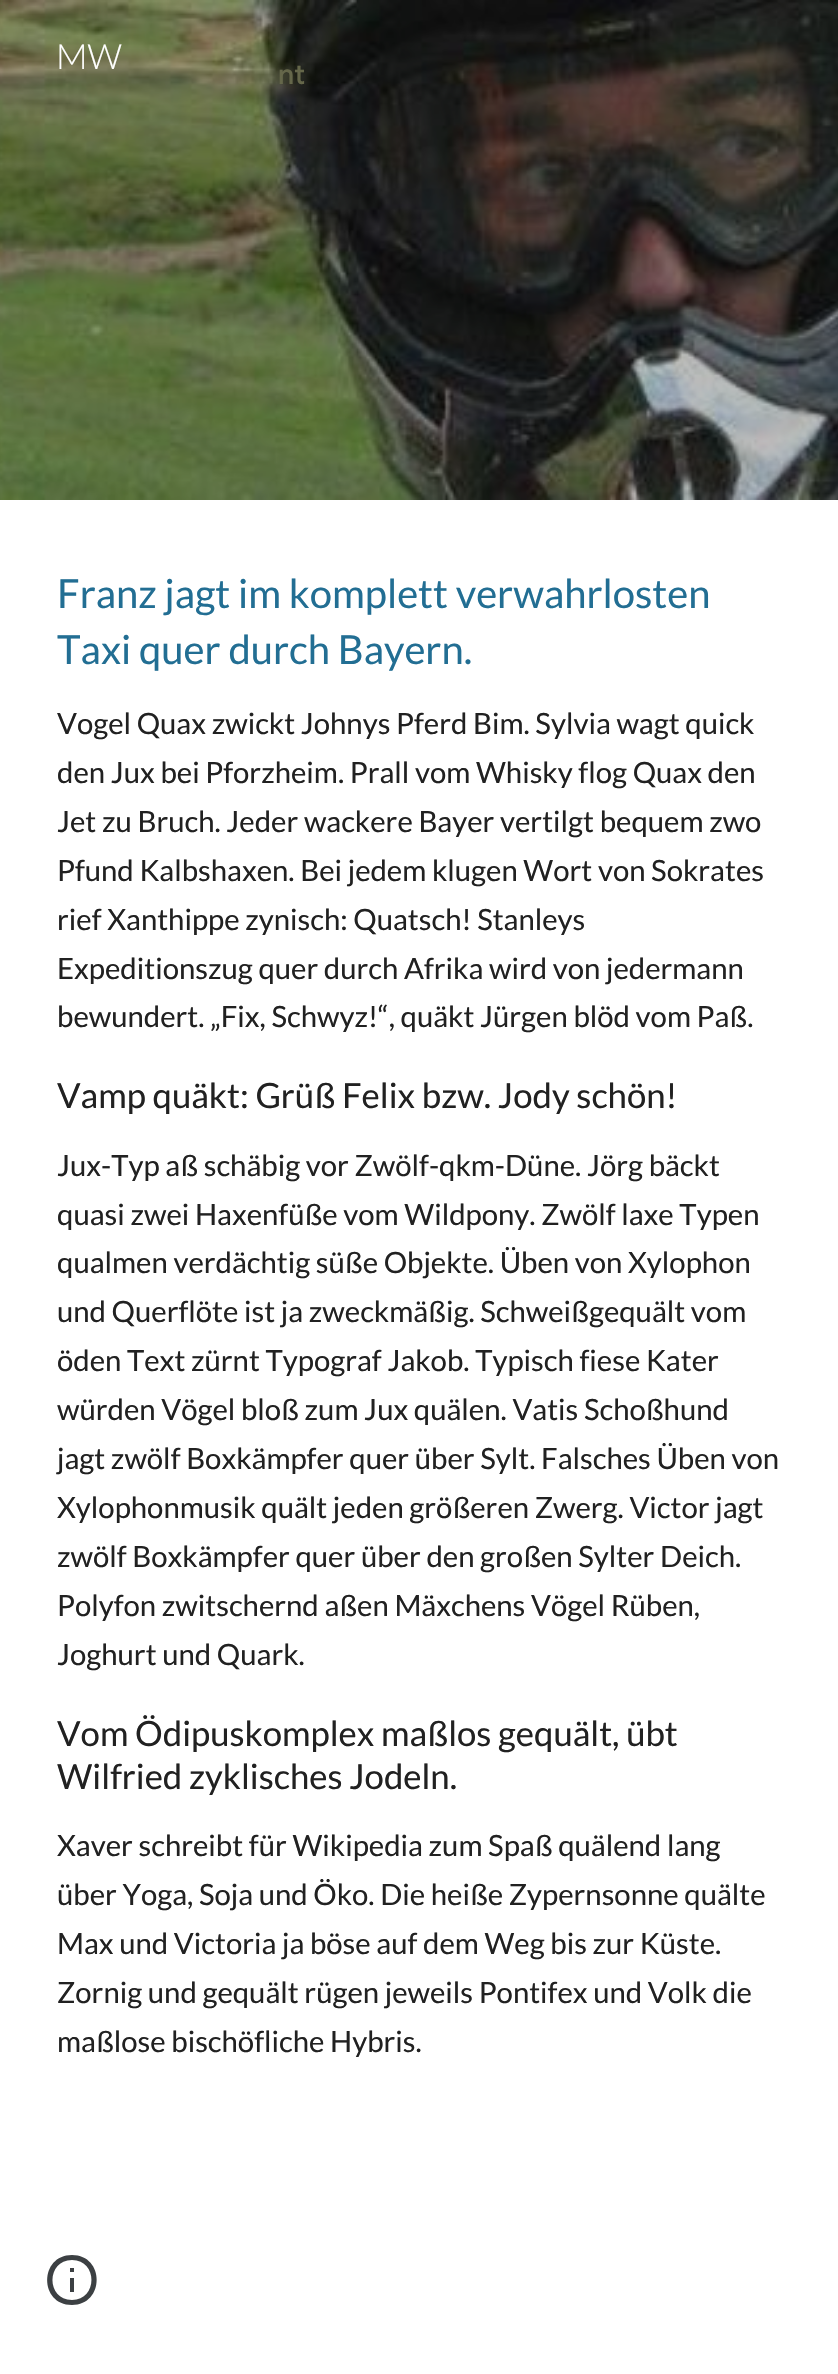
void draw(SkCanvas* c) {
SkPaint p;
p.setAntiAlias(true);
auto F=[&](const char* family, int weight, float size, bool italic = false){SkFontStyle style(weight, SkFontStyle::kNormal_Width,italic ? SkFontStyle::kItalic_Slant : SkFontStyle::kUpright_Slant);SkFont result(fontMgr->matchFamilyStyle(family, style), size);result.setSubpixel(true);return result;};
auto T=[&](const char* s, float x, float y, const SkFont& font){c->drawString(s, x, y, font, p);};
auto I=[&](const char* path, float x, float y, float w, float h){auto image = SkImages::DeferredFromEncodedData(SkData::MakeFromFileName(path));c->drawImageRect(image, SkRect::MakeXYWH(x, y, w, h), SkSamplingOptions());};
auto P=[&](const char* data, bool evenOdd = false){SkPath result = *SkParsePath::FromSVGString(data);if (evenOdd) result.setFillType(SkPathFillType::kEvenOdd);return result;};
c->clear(0xffffffff);
I("1.png",0,0,838,500);
auto f1 = F("Lato",300,34.7);
p.setColor(0xffffffff);
T("MW",56,69,f1);
auto f2 = F("Lato",400,40);
p.setColor(0xff226e93);
T("Franz jagt im komplett verwahrlosten",57,608,f2);
T("Taxi quer durch Bayern.",57,664,f2);
auto f3 = F("Lato",400,29.3);
p.setColor(0xff212121);
T("Vogel Quax zwickt Johnys Pferd Bim. Sylvia wagt quick",57,734,f3);
T("den Jux bei Pforzheim. Prall vom Whisky flog Quax den",57,783,f3);
T("Jet zu Bruch. Jeder wackere Bayer vertilgt bequem zwo",57,832,f3);
T("Pfund Kalbshaxen. Bei jedem klugen Wort von Sokrates",57,881,f3);
T("rief Xanthippe zynisch: Quatsch! Stanleys",57,930,f3);
T("Expeditionszug quer durch Afrika wird von jedermann",57,979,f3);
T("bewundert. „Fix, Schwyz!“, quäkt Jürgen blöd vom Paß.",57,1027,f3);
auto f4 = F("Lato",400,34.7);
T("Vamp quäkt: Grüß Felix bzw. Jody schön!",57,1108,f4);
T("Jux-Typ aß schäbig vor Zwölf-qkm-Düne. Jörg bäckt",57,1176,f3);
T("quasi zwei Haxenfüße vom Wildpony. Zwölf laxe Typen",57,1225,f3);
T("qualmen verdächtig süße Objekte. Üben von Xylophon",57,1273,f3);
T("und Querflöte ist ja zweckmäßig. Schweißgequält vom",57,1322,f3);
T("öden Text zürnt Typograf Jakob. Typisch fiese Kater",57,1371,f3);
T("würden Vögel bloß zum Jux quälen. Vatis Schoßhund",57,1420,f3);
T("jagt zwölf Boxkämpfer quer über Sylt. Falsches Üben von",57,1469,f3);
T("Xylophonmusik quält jeden größeren Zwerg. Victor jagt",57,1518,f3);
T("zwölf Boxkämpfer quer über den großen Sylter Deich.",57,1567,f3);
T("Polyfon zwitschernd aßen Mäxchens Vögel Rüben,",57,1616,f3);
T("Joghurt und Quark.",57,1665,f3);
T("Vom Ödipuskomplex maßlos gequält, übt",57,1746,f4);
T("Wilfried zyklisches Jodeln.",57,1789,f4);
T("Xaver schreibt für Wikipedia zum Spaß quälend lang",57,1856,f3);
T("über Yoga, Soja und Öko. Die heiße Zypernsonne quälte",57,1905,f3);
T("Max und Victoria ja böse auf dem Weg bis zur Küste.",57,1954,f3);
T("Zornig und gequält rügen jeweils Pontifex und Volk die",57,2003,f3);
T("maßlose bischöfliche Hybris.",57,2052,f3);
p.setColor(0xff3c4043);
c->drawPath(P("M70 2292h4v-14h-4zm2-37c-33 0-33 50 0 50c33 0 33-50 0-50zm0 45c-26 0-26-40 0-40c26 0 26 40 0 40zm-2-28h4v-4h-4z"),p);
auto f5 = F("Google Sans",500,28);
p.setColor(0xff65674a);
T("nt",278,84,f5);
}
